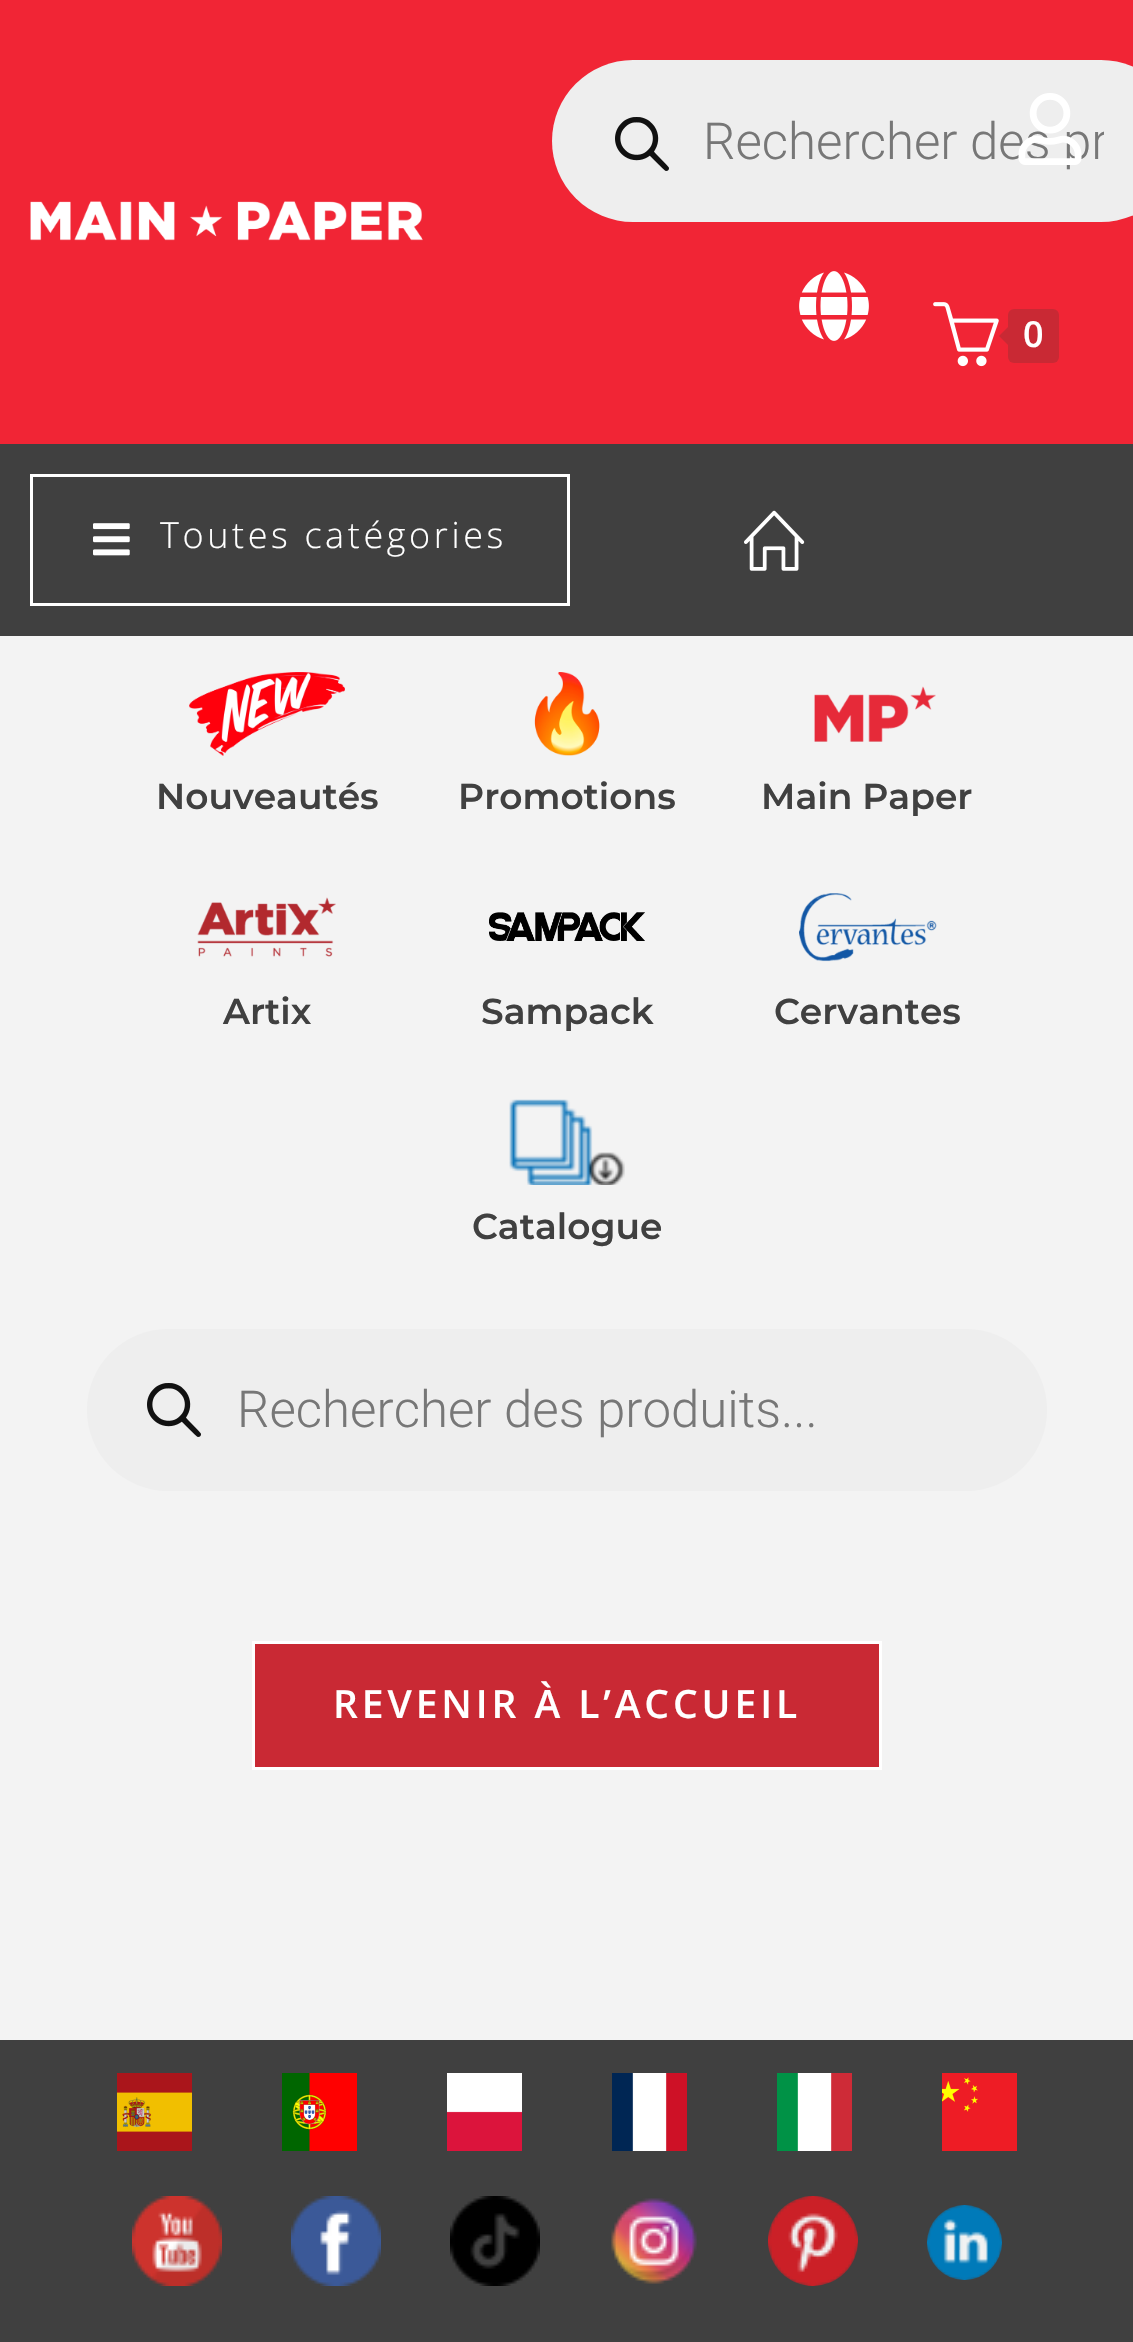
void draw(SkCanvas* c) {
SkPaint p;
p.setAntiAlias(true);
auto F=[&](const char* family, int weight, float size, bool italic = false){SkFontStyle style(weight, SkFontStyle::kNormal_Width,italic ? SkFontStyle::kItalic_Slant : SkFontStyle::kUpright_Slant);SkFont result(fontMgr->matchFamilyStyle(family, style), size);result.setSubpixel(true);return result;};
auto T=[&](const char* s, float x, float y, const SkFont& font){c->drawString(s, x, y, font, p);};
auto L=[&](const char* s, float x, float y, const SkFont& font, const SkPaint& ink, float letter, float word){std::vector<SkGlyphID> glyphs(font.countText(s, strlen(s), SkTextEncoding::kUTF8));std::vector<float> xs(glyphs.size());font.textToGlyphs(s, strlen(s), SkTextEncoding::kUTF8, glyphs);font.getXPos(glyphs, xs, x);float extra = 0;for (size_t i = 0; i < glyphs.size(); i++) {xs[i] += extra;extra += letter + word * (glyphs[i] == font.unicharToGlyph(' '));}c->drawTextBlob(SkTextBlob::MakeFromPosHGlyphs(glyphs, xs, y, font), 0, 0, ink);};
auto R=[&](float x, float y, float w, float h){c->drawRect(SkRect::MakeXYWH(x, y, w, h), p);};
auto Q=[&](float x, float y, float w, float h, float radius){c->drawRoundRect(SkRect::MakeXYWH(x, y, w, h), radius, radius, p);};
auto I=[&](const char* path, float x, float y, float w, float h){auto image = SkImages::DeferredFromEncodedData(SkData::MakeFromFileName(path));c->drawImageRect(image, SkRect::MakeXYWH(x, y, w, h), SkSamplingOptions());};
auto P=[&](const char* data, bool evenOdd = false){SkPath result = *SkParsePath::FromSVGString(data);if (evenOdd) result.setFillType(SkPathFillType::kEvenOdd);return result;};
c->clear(0xfff3f3f3);
p.setColor(0xfff12535);
R(0,0,1133,444);
I("1.png",30,201,393,40);
p.setColor(0xffeeeeee);
Q(552,60,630,162,81);
c->save();
c->clipRect(SkRect::MakeXYWH(702,111,402,60));
auto f1 = F("Roboto",300,51);
p.setColor(0xff777777);
T("Rechercher des pr",703,159,f1);
c->restore();
I("2.png",1018,93,64,72);
I("3.png",615,117,54,54);
I("4.png",799,271,70,70);
I("5.png",933,302,66,65);
p.setColor(0xffc92934);
Q(1008,309,51,54,6);
c->drawPath(P("M1014 321v30l-15-15z"),p);
auto f2 = F("Open Sans",600,36);
p.setColor(0xffffffff);
T("0",1023,347,f2);
p.setColor(0xff404040);
R(0,444,1133,192);
p.setStroke(true);
p.setStrokeWidth(3);
p.setColor(0xffffffff);
c->drawRect(SkRect::MakeXYWH(31.5,475.5,537,129),p);
I("6.png",93,523,37,33);
auto f3 = F("Open Sans",300,36);
p.setStroke(false);
L("Toutes catégories",160,548,f3,p,3.6,0);
I("7.png",744,510,61,61);
I("8.png",189,672,156,84);
auto f4 = F("Montserrat",600,36);
p.setColor(0xff404040);
T("Nouveautés",156,809,f4);
I("9.png",534,672,66,84);
T("Promotions",458,809,f4);
I("10.png",814,686,122,56);
T("Main Paper",761,809,f4);
I("11.png",197,897,139,60);
T("Artix",223,1024,f4);
I("12.png",489,912,156,29);
T("Sampack",481,1024,f4);
I("13.png",799,893,138,69);
T("Cervantes",774,1024,f4);
I("14.png",509,1099,116,86);
T("Catalogue",472,1239,f4);
p.setColor(0xffeeeeee);
Q(87,1329,960,162,81);
I("3.png",147,1383,54,54);
p.setColor(0xff777777);
T("Rechercher des produits...",237,1427,f1);
p.setColor(0xffc92934);
c->drawRect(SkRect::MakeXYWH(253.5,1642.5,627,126),p);
p.setStroke(true);
p.setColor(0xffffffff);
c->drawRect(SkRect::MakeXYWH(253.5,1642.5,627,126),p);
auto f5 = F("Open Sans",600,39);
p.setStroke(false);
L("REVENIR À L’ACCUEIL",333,1718,f5,p,3.9,0);
p.setColor(0xff404040);
R(0,2040,1133,302);
I("15.png",117,2073,75,78);
I("16.png",282,2073,75,78);
I("17.png",447,2073,75,78);
I("18.png",612,2073,75,78);
I("19.png",777,2073,75,78);
I("20.png",942,2073,75,78);
I("21.png",132,2196,90,90);
I("22.png",291,2196,90,90);
I("23.png",450,2196,90,90);
I("24.png",611,2198,86,86);
I("25.png",768,2196,90,90);
I("26.png",927,2205,75,75);
}
